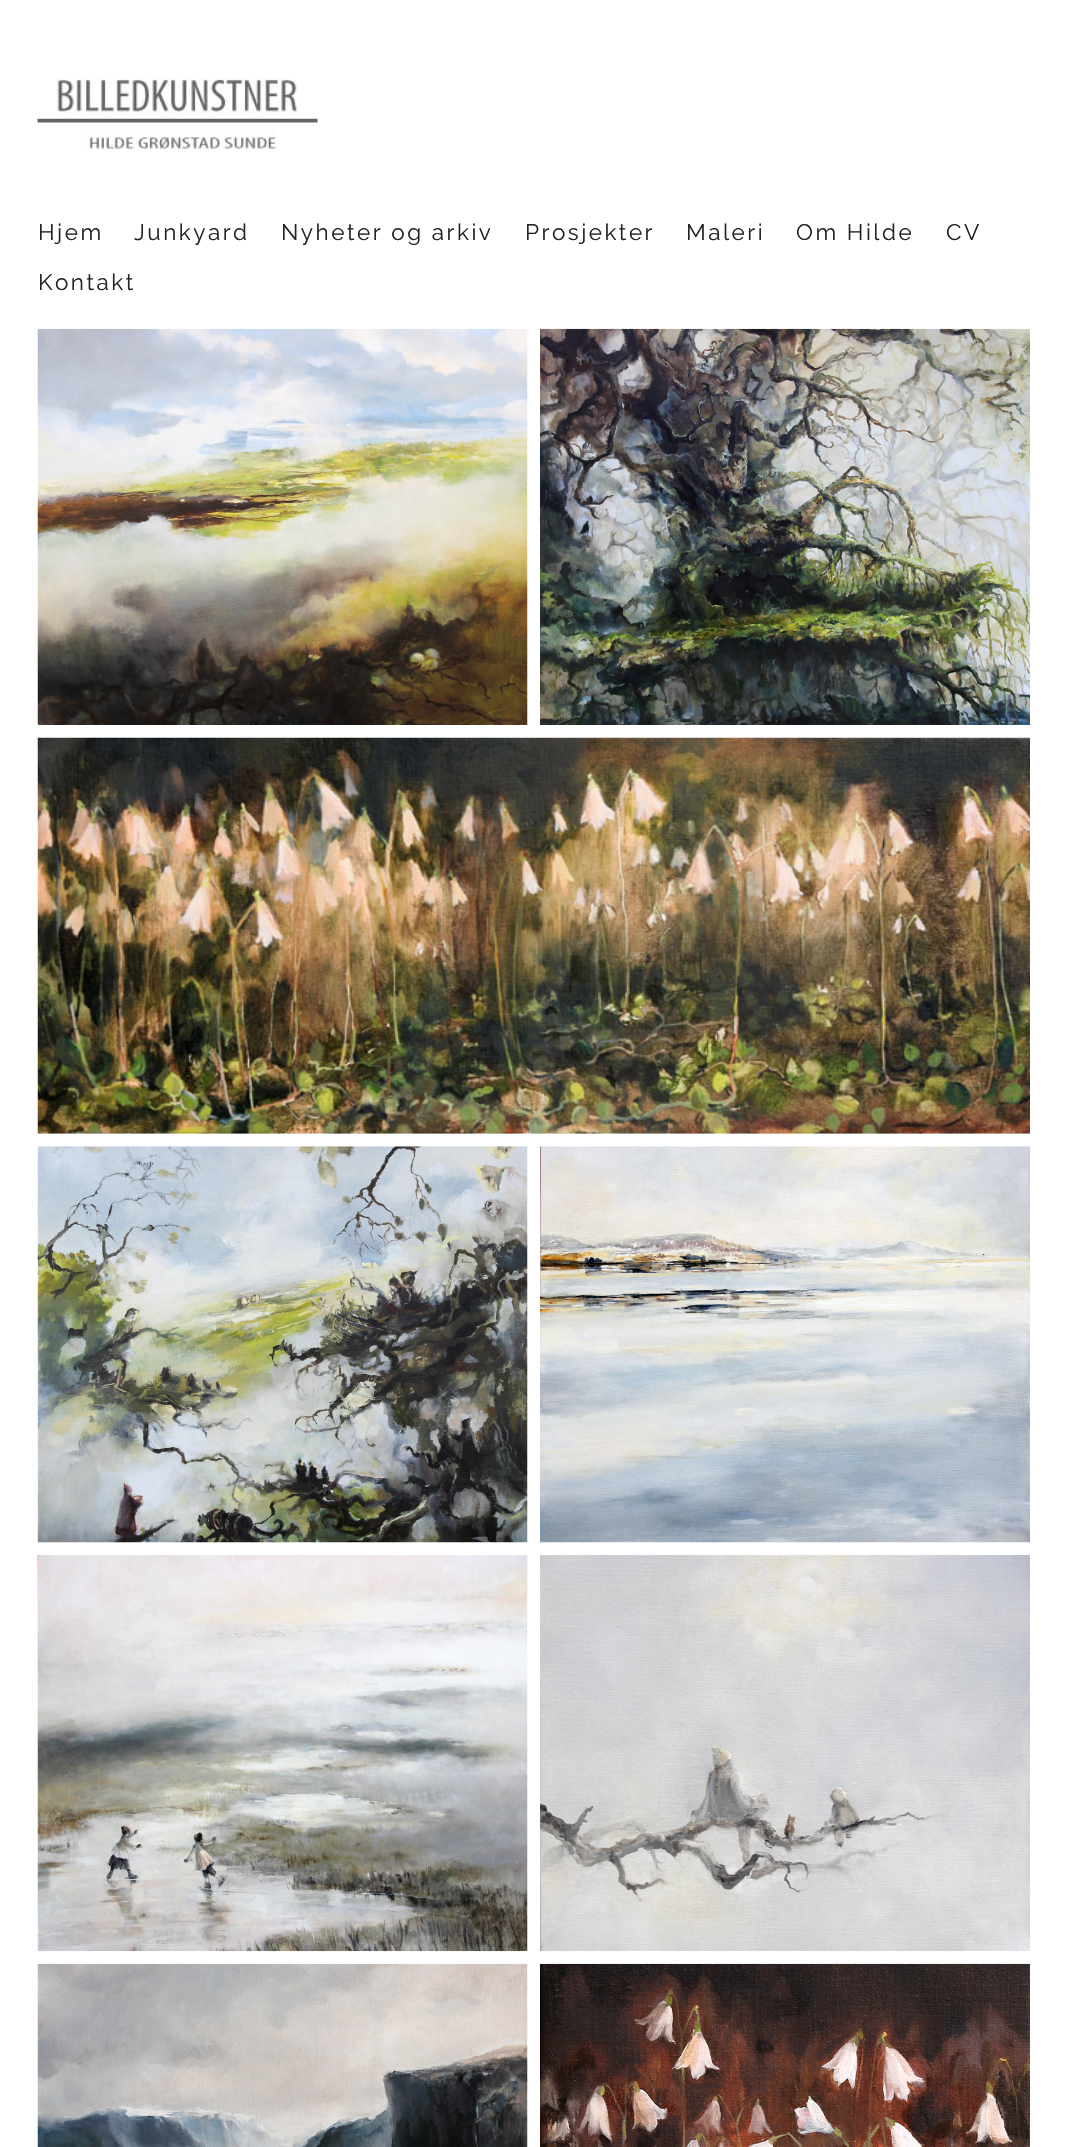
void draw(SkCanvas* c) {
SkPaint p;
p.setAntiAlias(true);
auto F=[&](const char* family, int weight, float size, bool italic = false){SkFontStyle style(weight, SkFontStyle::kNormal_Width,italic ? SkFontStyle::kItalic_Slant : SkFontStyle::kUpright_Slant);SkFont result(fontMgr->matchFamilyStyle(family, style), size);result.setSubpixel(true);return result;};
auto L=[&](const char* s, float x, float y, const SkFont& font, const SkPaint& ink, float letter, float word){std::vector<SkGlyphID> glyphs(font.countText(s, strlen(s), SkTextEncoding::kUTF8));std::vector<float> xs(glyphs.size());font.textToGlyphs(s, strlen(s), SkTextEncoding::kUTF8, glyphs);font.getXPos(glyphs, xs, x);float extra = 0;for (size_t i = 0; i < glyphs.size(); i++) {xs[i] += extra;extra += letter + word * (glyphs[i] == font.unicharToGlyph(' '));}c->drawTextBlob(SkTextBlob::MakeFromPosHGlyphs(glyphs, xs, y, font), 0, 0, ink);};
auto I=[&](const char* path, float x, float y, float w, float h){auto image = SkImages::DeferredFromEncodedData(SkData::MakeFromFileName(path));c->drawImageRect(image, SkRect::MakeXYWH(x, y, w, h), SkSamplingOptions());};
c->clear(0xffffffff);
I("1.png",37,79,281,70);
auto f1 = F("Raleway",400,22.5);
p.setColor(0xff212326);
L("Hjem",38,240,f1,p,2.5,0);
L("Junkyard",134,240,f1,p,2.5,0);
L("Nyheter og arkiv",281,240,f1,p,2.5,0);
L("Prosjekter",525,240,f1,p,2.5,0);
L("Maleri",686,240,f1,p,2.5,0);
L("Om Hilde",796,240,f1,p,2.5,0);
L("CV",946,240,f1,p,2.5,0);
L("Kontakt",38,290,f1,p,2.5,0);
I("2.png",37,328,491,397);
I("3.png",540,328,490,397);
I("4.png",37,737,993,397);
I("5.png",37,1146,491,397);
I("6.png",540,1146,490,397);
I("7.png",37,1555,491,397);
I("8.png",540,1555,490,397);
I("9.png",37,1963,491,184);
I("10.png",540,1963,490,184);
}
